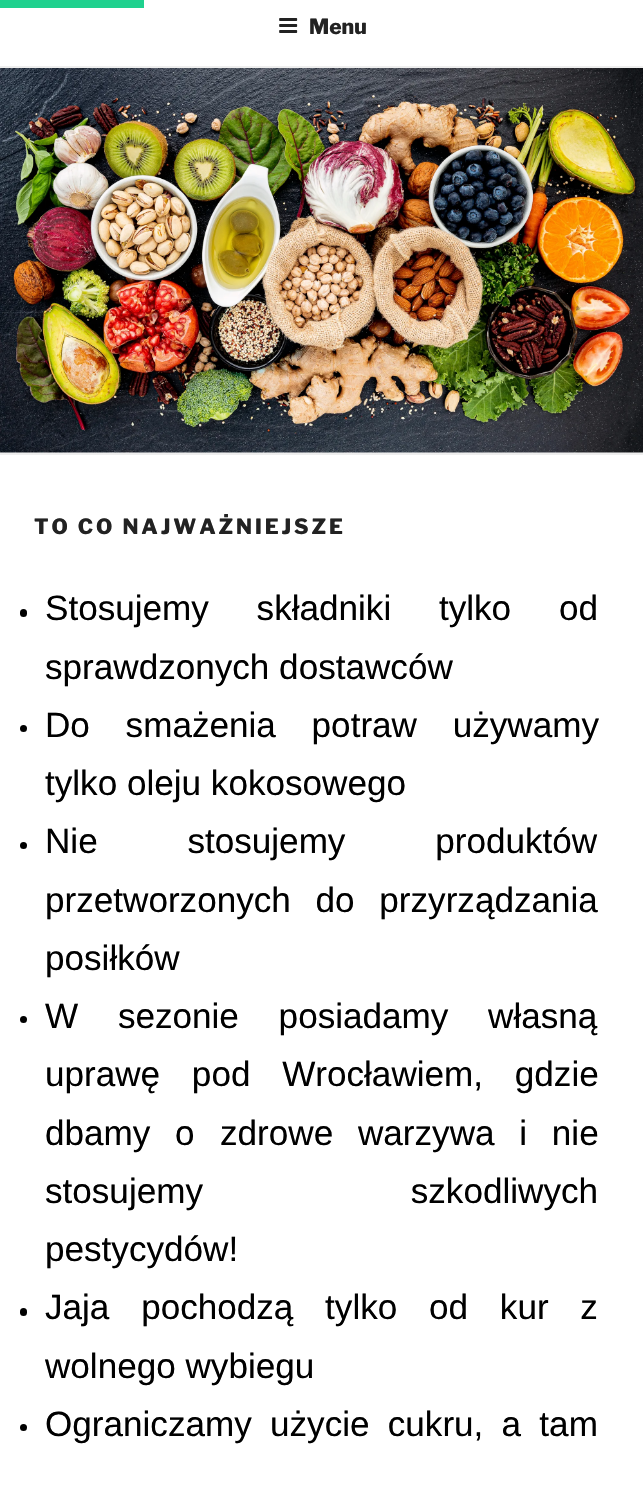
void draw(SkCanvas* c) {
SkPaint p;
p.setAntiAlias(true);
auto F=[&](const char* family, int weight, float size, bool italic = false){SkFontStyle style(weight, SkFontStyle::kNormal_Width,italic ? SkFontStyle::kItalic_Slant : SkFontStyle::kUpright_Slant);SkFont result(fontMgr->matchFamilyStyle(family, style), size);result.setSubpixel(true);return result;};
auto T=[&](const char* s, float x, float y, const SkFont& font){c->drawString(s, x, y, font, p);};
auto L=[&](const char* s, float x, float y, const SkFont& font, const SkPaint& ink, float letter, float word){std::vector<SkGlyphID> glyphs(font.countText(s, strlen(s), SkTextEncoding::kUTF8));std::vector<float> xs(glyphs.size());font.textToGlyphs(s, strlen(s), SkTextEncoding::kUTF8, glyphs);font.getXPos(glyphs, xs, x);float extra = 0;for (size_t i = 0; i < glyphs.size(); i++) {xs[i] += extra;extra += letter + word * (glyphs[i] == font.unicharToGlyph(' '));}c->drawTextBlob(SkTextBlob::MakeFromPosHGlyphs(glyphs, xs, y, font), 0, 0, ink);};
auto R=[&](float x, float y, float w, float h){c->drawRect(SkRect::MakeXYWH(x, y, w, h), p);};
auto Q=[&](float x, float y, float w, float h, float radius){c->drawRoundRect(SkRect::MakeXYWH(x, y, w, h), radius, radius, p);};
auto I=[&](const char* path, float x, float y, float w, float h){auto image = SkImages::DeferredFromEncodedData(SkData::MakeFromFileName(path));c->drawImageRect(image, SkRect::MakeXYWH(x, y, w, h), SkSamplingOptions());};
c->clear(0xffffffff);
p.setColor(0xff1fd18e);
R(0,0,144,8);
p.setColor(0xffeeeeee);
R(0,66,643,2);
I("1.png",279,18,19,15);
auto f1 = F("Libre Franklin",800,21);
p.setColor(0xff222222);
T("Menu",309,34,f1);
p.setColor(0xfffafafa);
R(0,452,643,1);
p.setColor(0xffeeeeee);
R(0,453,643,2);
I("2.png",0,68,643,385);
p.setColor(0xff222222);
L("TO CO NAJWAŻNIEJSZE",34,534,f1,p,2.9,0);
p.setColor(0xff000000);
Q(20,609,7,8,3.5);
auto f2 = F("Liberation Sans",400,35.1);
L("Stosujemy składniki tylko od",45,620,f2,p,0,38);
T("sprawdzonych dostawców",45,679,f2);
c->drawCircle(23.5,728.5,3.5,p);
L("Do smażenia potraw używamy",45,737,f2,p,0,26);
T("tylko oleju kokosowego",45,795,f2);
c->drawCircle(23.5,845.5,3.5,p);
L("Nie stosujemy produktów",45,853,f2,p,0,80);
L("przetworzonych do przyrządzania",45,912,f2,p,0,15);
T("posiłków",45,970,f2);
c->drawCircle(23.5,1019.5,3.5,p);
L("W sezonie posiadamy własną",45,1028,f2,p,0,30);
L("uprawę pod Wrocławiem, gdzie",45,1086,f2,p,0,22);
L("dbamy o",45,1145,f2,p,0,15);
T("zdrowe",220,1145,f2);
L("warzywa i nie",358,1145,f2,p,0,15);
L("stosujemy szkodliwych",45,1203,f2,p,0,198);
T("pestycydów!",45,1261,f2);
Q(20,1308,7,8,3.5);
L("Jaja pochodzą tylko od kur z",45,1319,f2,p,0,22);
T("wolnego wybiegu",45,1378,f2);
c->drawCircle(23.5,1427.5,3.5,p);
L("Ograniczamy użycie cukru, a tam",45,1436,f2,p,0,8.5);
}
